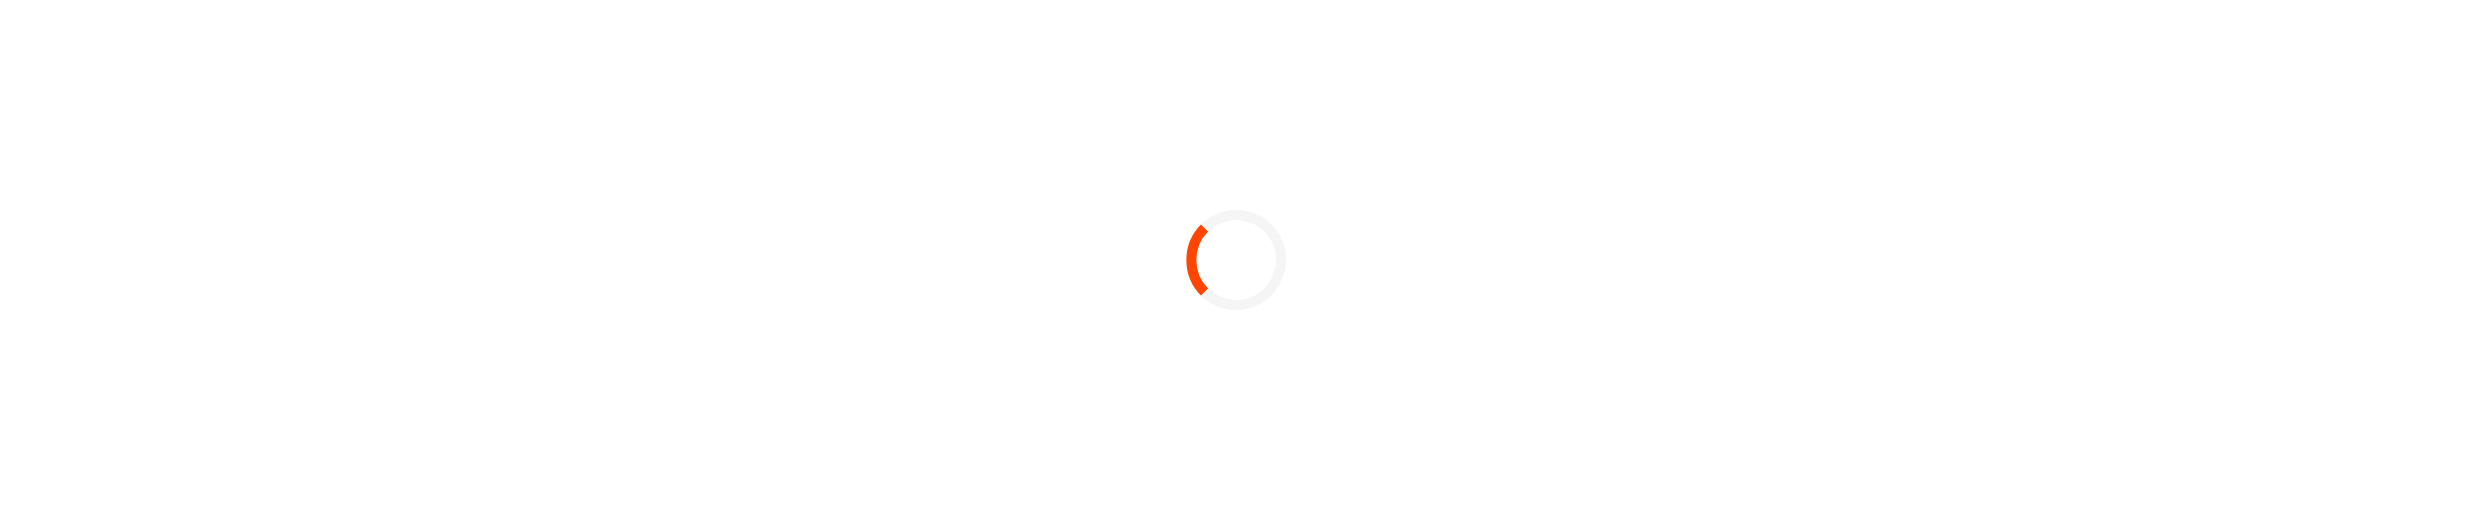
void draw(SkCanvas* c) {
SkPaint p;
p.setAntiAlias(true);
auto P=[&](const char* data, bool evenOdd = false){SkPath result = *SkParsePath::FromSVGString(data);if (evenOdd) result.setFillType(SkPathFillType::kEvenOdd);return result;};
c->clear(0xffffffff);
p.setStroke(true);
p.setStrokeWidth(10);
p.setColor(0xfff5f5f5);
c->drawPath(P("M1204.5 228c10.5-10.5 26-15 40.5-12c8.5 1.5 17 6 23 12c28 28.5 8 77-32 77c-11.5 0-23-5-31.5-13"),p);
p.setColor(0xffff4500);
c->drawPath(P("M1204.5 292c-17.5-17.5-17.5-46.5 0-64"),p);
}
